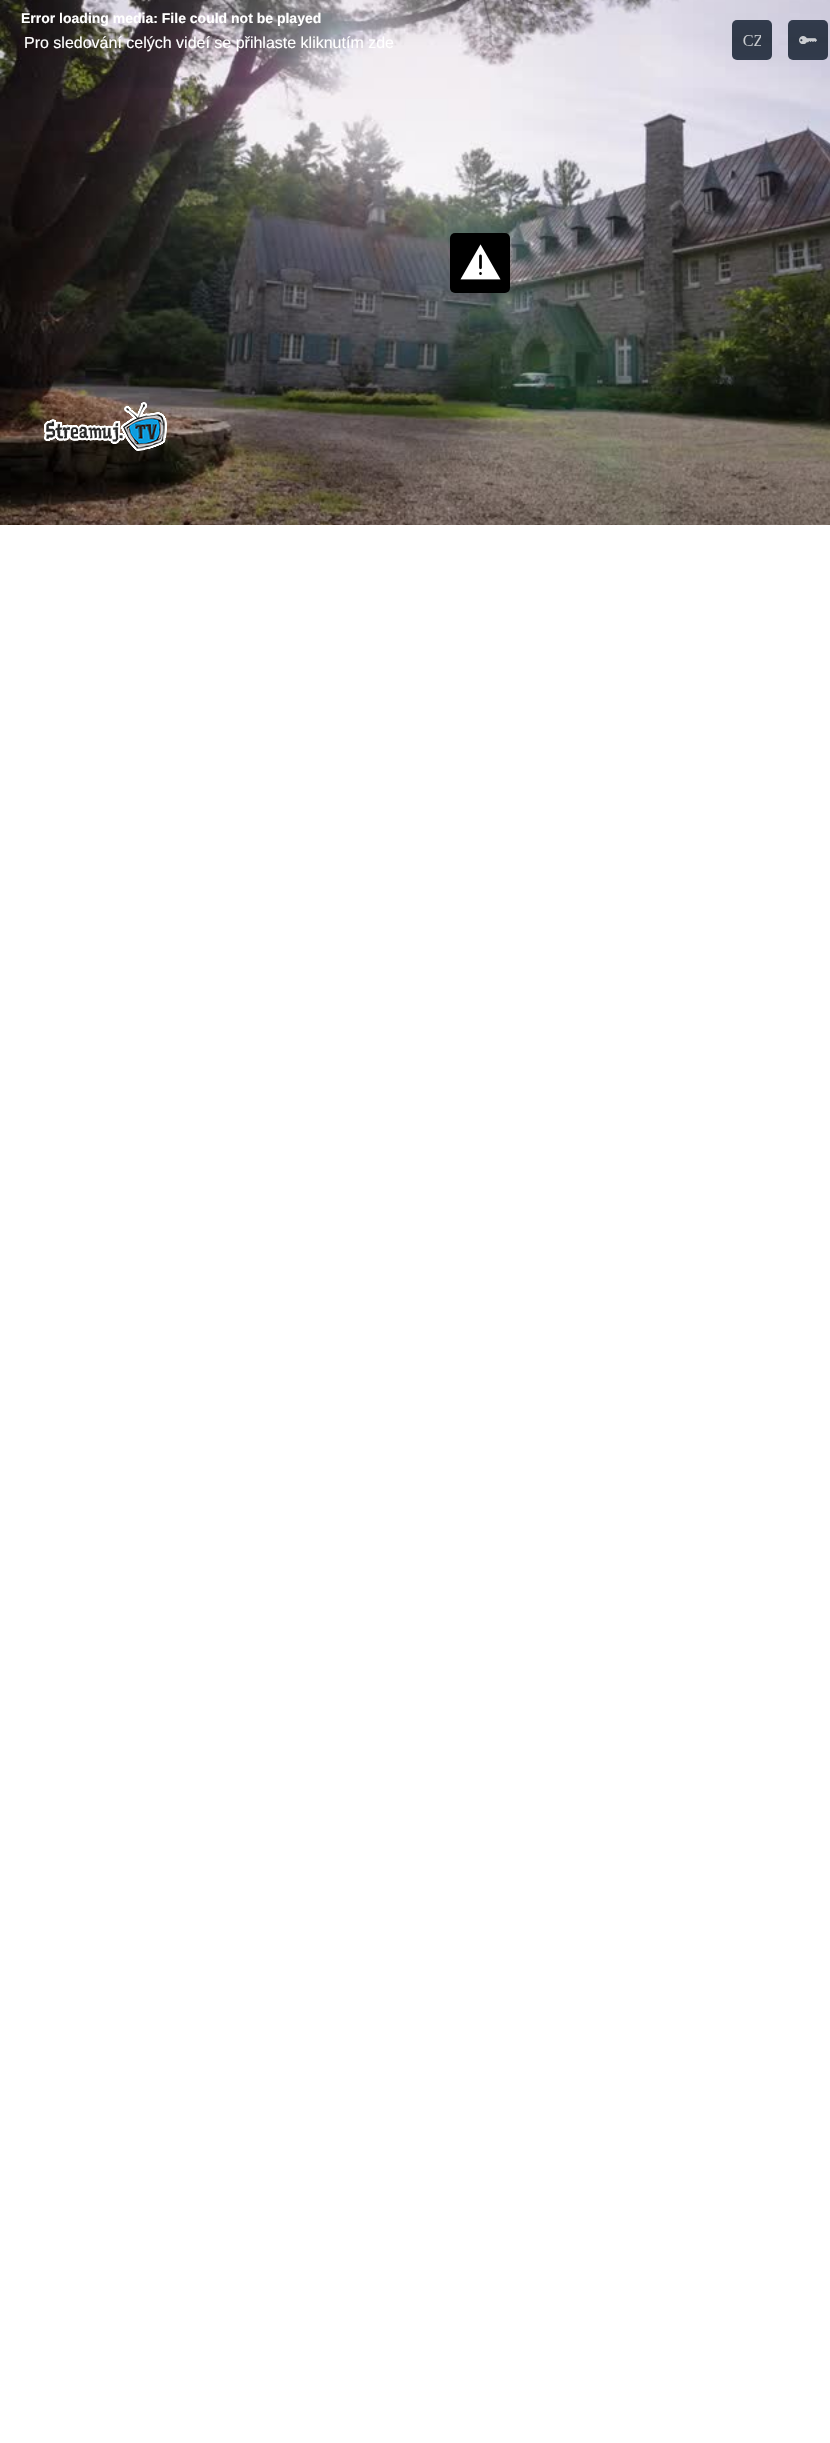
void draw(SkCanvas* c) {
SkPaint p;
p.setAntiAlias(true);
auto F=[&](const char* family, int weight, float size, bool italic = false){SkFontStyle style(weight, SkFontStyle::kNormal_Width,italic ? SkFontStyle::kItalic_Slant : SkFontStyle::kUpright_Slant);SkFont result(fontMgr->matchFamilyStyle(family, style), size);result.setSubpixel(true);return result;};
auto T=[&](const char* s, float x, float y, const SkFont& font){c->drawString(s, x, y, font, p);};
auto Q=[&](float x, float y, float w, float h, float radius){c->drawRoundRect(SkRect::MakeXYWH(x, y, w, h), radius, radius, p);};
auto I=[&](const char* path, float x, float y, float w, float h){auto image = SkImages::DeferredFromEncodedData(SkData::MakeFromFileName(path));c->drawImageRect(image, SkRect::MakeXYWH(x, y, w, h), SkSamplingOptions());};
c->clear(0xffffffff);
I("1.png",0,0,830,525);
auto f1 = F("Liberation Sans",700,14);
p.setColor(0xffffffff);
T("Error loading media: File could not be played",21,23,f1);
{
const SkColor colors[] = {0xff323b4c,0xff2f3847,0xff323b4c};
const float stops[] = {0,.5,1};
const SkPoint ends[] = {{752,20}, {752,60}};
p.setShader(SkGradientShader::MakeLinear(ends, colors, stops, 3, SkTileMode::kClamp));
p.setAlpha(255);
}
Q(732,20,40,40,5);
I("2.png",743,35,18,11);
{
const SkColor colors[] = {0xff323b4c,0xff2f3847,0xff323b4c};
const float stops[] = {0,.5,1};
const SkPoint ends[] = {{808,20}, {808,60}};
p.setShader(SkGradientShader::MakeLinear(ends, colors, stops, 3, SkTileMode::kClamp));
p.setAlpha(255);
}
Q(788,20,40,40,5);
I("3.png",799,36,18,8);
I("4.png",44,402,123,49);
p.setShader(nullptr);
p.setColor(0xff000000);
Q(450,233,60,60,5);
I("5.png",460,244,41,36);
auto f2 = F("Liberation Sans",400,16);
p.setColor(0xffffffff);
T("Pro sledování celých videí se přihlaste kliknutím zde",24,48,f2);
}
